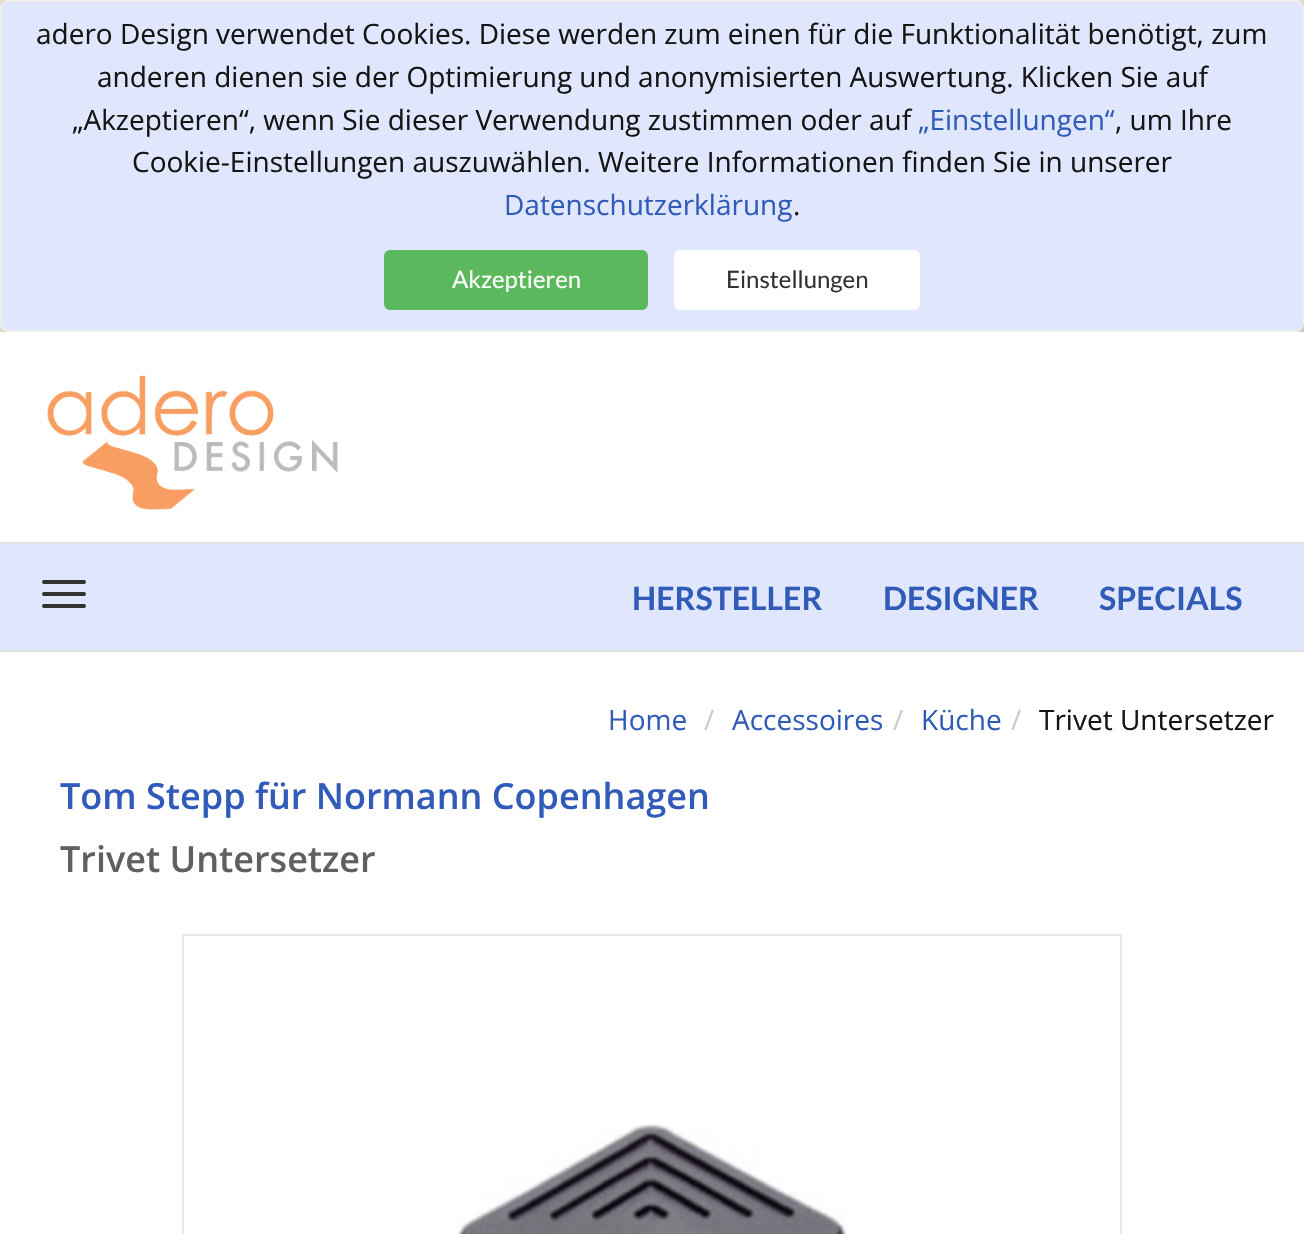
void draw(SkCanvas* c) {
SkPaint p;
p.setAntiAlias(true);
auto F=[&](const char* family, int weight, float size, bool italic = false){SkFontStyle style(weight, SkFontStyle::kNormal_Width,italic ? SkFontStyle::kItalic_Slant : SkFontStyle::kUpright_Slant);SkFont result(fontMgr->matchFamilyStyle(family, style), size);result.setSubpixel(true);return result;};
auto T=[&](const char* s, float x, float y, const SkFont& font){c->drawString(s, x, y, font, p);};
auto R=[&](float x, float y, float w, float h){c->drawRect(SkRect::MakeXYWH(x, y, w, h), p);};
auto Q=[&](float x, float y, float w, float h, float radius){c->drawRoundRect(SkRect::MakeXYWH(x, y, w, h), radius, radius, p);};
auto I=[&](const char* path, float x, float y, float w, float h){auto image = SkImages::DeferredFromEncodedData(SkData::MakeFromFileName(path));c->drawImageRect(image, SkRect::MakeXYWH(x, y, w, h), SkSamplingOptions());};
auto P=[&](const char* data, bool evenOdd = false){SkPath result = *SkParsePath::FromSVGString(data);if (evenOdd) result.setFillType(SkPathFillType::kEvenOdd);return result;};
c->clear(0xffe8e1ce);
p.setColor(0xffbbbbbb);
p.setMaskFilter(SkMaskFilter::MakeBlur(kNormal_SkBlurStyle, 5));
c->drawRoundRect(SkRect::MakeXYWH(4,4,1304,332),8,8,p);
p.setMaskFilter(nullptr);
p.setColor(0xffe0e6fc);
c->drawRoundRect(SkRect::MakeXYWH(1,1,1302,330),7,7,p);
p.setStroke(true);
p.setStrokeWidth(2);
p.setColor(0xffeeeeee);
c->drawRoundRect(SkRect::MakeXYWH(1,1,1302,330),7,7,p);
auto f1 = F("Open Sans",400,28);
p.setStroke(false);
p.setColor(0xff151515);
T("adero Design verwendet Cookies. Diese werden zum einen für die Funktionalität benötigt, zum",36,44,f1);
T("anderen dienen sie der Optimierung und anonymisierten Auswertung. Klicken Sie auf",97,87,f1);
T("„Akzeptieren“, wenn Sie dieser Verwendung zustimmen oder auf",72,130,f1);
p.setColor(0xff305bb8);
T("„Einstellungen“",918,130,f1);
p.setColor(0xff151515);
T(", um Ihre",1115,130,f1);
T("Cookie-Einstellungen auszuwählen. Weitere Informationen finden Sie in unserer",132,172,f1);
p.setColor(0xff305bb8);
T("Datenschutzerklärung",504,215,f1);
p.setColor(0xff151515);
T(".",793,215,f1);
p.setColor(0xff5cb85c);
c->drawRoundRect(SkRect::MakeXYWH(385,251,262,58),5,5,p);
p.setStroke(true);
c->drawRoundRect(SkRect::MakeXYWH(385,251,262,58),5,5,p);
auto f2 = F("Lato",400,24);
p.setStroke(false);
p.setColor(0xffffffff);
T("Akzeptieren",452,288,f2);
c->drawRoundRect(SkRect::MakeXYWH(675,251,244,58),5,5,p);
p.setStroke(true);
c->drawRoundRect(SkRect::MakeXYWH(675,251,244,58),5,5,p);
p.setStroke(false);
p.setColor(0xff333333);
T("Einstellungen",726,288,f2);
p.setColor(0xffffffff);
R(0,332,1304,902);
I("1.png",47,375,291,135);
p.setColor(0xffe0e6fc);
R(0,542,1304,110);
p.setColor(0xffe0e0e0);
c->drawPath(P("M0 542h1304l-2 2h-1300z"),p);
c->drawPath(P("M1304 652h-1304l2-2h1300z"),p);
p.setColor(0xff333333);
Q(42,580,44,4,2);
Q(42,592,44,4,2);
Q(42,604,44,4,2);
auto f3 = F("Lato",700,32);
p.setColor(0xff305bb8);
T("HERSTELLER",632,610,f3);
T("DESIGNER",883,610,f3);
T("SPECIALS",1099,610,f3);
T("Home",608,730,f1);
p.setColor(0xffcccccc);
T("/",704,730,f1);
p.setColor(0xff305bb8);
T("Accessoires",732,730,f1);
p.setColor(0xffcccccc);
T("/",893,730,f1);
p.setColor(0xff305bb8);
T("Küche",921,730,f1);
p.setColor(0xffcccccc);
T("/",1011,730,f1);
p.setColor(0xff151515);
T("Trivet Untersetzer",1039,730,f1);
auto f4 = F("Open Sans",600,36);
p.setColor(0xff305bb8);
T("Tom Stepp für Normann Copenhagen",60,809,f4);
p.setColor(0xff606060);
T("Trivet Untersetzer",60,872,f4);
p.setStroke(true);
p.setColor(0xffe8e8e8);
c->drawRect(SkRect::MakeXYWH(183,935,938,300),p);
I("2.png",457,1124,390,110);
}
